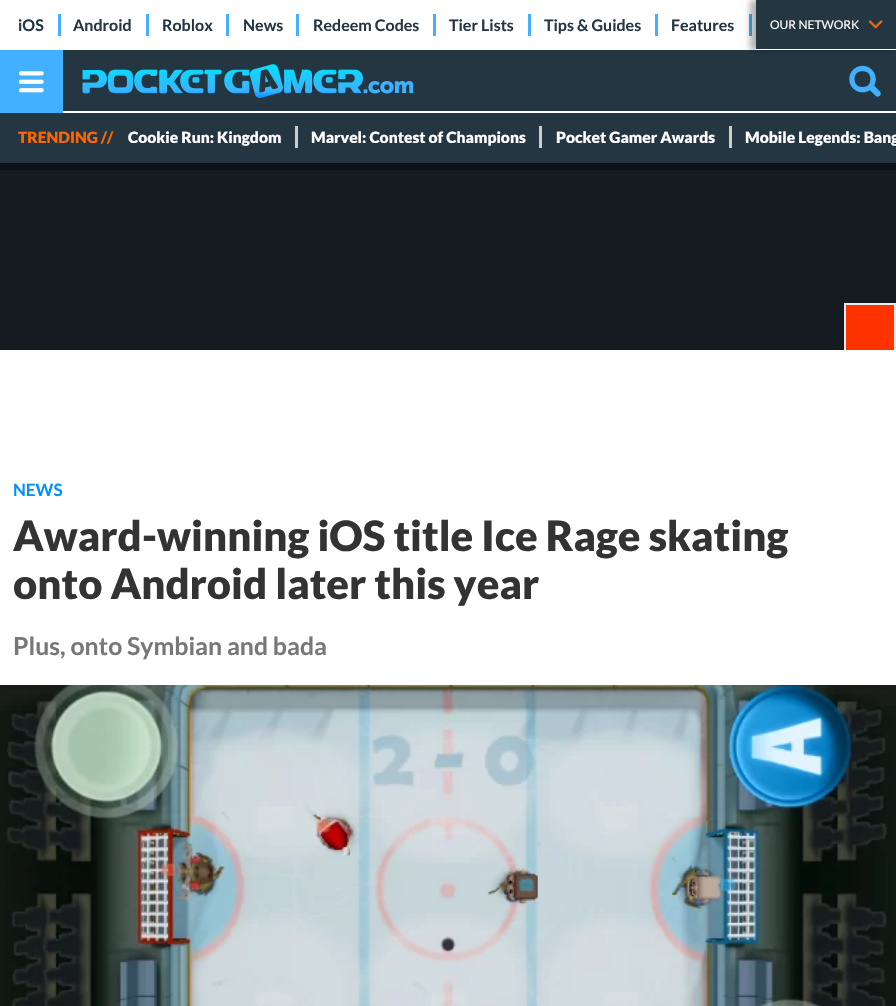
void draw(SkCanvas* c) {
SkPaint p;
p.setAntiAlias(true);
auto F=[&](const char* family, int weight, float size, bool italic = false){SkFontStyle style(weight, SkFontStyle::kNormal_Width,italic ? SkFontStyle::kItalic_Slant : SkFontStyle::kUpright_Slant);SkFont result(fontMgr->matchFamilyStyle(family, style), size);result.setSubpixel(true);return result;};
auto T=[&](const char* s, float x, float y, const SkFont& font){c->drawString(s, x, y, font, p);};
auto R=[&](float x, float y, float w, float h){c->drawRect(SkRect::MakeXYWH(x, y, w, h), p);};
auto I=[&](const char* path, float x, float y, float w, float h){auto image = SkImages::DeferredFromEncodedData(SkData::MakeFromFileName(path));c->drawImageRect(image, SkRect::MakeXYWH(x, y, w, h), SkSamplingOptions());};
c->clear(0xff141c22);
p.setColor(0xff0c1114);
R(0,163,896,7);
p.setColor(0xffffffff);
R(0,0,896,113);
auto f1 = F("Lato",700,16);
p.setColor(0xff243642);
T("iOS",18,31,f1);
p.setColor(0xff42b0ff);
R(58,14,3,22);
p.setColor(0xff243642);
T("Android",73,31,f1);
p.setColor(0xff42b0ff);
R(146,14,3,22);
p.setColor(0xff243642);
T("Roblox",162,31,f1);
p.setColor(0xff42b0ff);
R(226,14,3,22);
p.setColor(0xff243642);
T("News",243,31,f1);
p.setColor(0xff42b0ff);
R(296,14,3,22);
p.setColor(0xff243642);
T("Redeem Codes",313,31,f1);
p.setColor(0xff42b0ff);
R(433,14,3,22);
p.setColor(0xff243642);
T("Tier Lists",449,31,f1);
p.setColor(0xff42b0ff);
R(528,14,3,22);
p.setColor(0xff243642);
T("Tips & Guides",544,31,f1);
p.setColor(0xff42b0ff);
R(655,14,3,22);
p.setColor(0xff243642);
T("Features",671,31,f1);
p.setColor(0xff42b0ff);
R(749,14,3,22);
p.setColor(0xff243642);
R(63,50,833,61);
p.setColor(0x4d000000);
p.setMaskFilter(SkMaskFilter::MakeBlur(kNormal_SkBlurStyle, 3));
c->drawRect(SkRect::MakeXYWH(750,0,140,50),p);
p.setMaskFilter(nullptr);
p.setColor(0xff243642);
R(756,0,140,49);
p.setColor(0xffffffff);
R(756,49,140,1);
auto f2 = F("Lato",400,12);
T("OUR NETWORK",770,29,f2);
I("1.png",869,20,14,9);
p.setColor(0xff42b0ff);
R(0,50,63,63);
I("2.png",19,71,25,22);
I("3.png",82,64,332,34);
I("4.png",849,65,32,32);
p.setColor(0xff243642);
R(0,113,896,50);
auto f3 = F("Lato",900,15.6);
p.setColor(0xffff6600);
T("TRENDING //",18,143,f3);
p.setColor(0xffffffff);
T("Cookie Run: Kingdom",128,143,f3);
p.setColor(0xffcccccc);
R(295,126,3,22);
p.setColor(0xffffffff);
T("Marvel: Contest of Champions",311,143,f3);
p.setColor(0xffcccccc);
R(539,126,3,22);
p.setColor(0xffffffff);
T("Pocket Gamer Awards",556,143,f3);
p.setColor(0xffcccccc);
R(729,126,3,22);
p.setColor(0xffffffff);
T("Mobile Legends: Bang",745,143,f3);
p.setColor(0xffeaeaea);
R(844,303,52,47);
p.setColor(0xffff3300);
R(846,305,48,45);
p.setColor(0xffffffff);
R(0,350,896,335);
auto f4 = F("Lato",700,17);
p.setColor(0xff0091ff);
T("NEWS",13,496,f4);
auto f5 = F("Lato",900,41.75);
p.setColor(0xff333333);
T("Award-winning iOS title Ice Rage skating",13,551,f5);
T("onto Android later this year",13,599,f5);
auto f6 = F("Lato",700,24.75);
p.setColor(0xff777777);
T("Plus, onto Symbian and bada",13,655,f6);
I("5.png",0,685,896,321);
}
